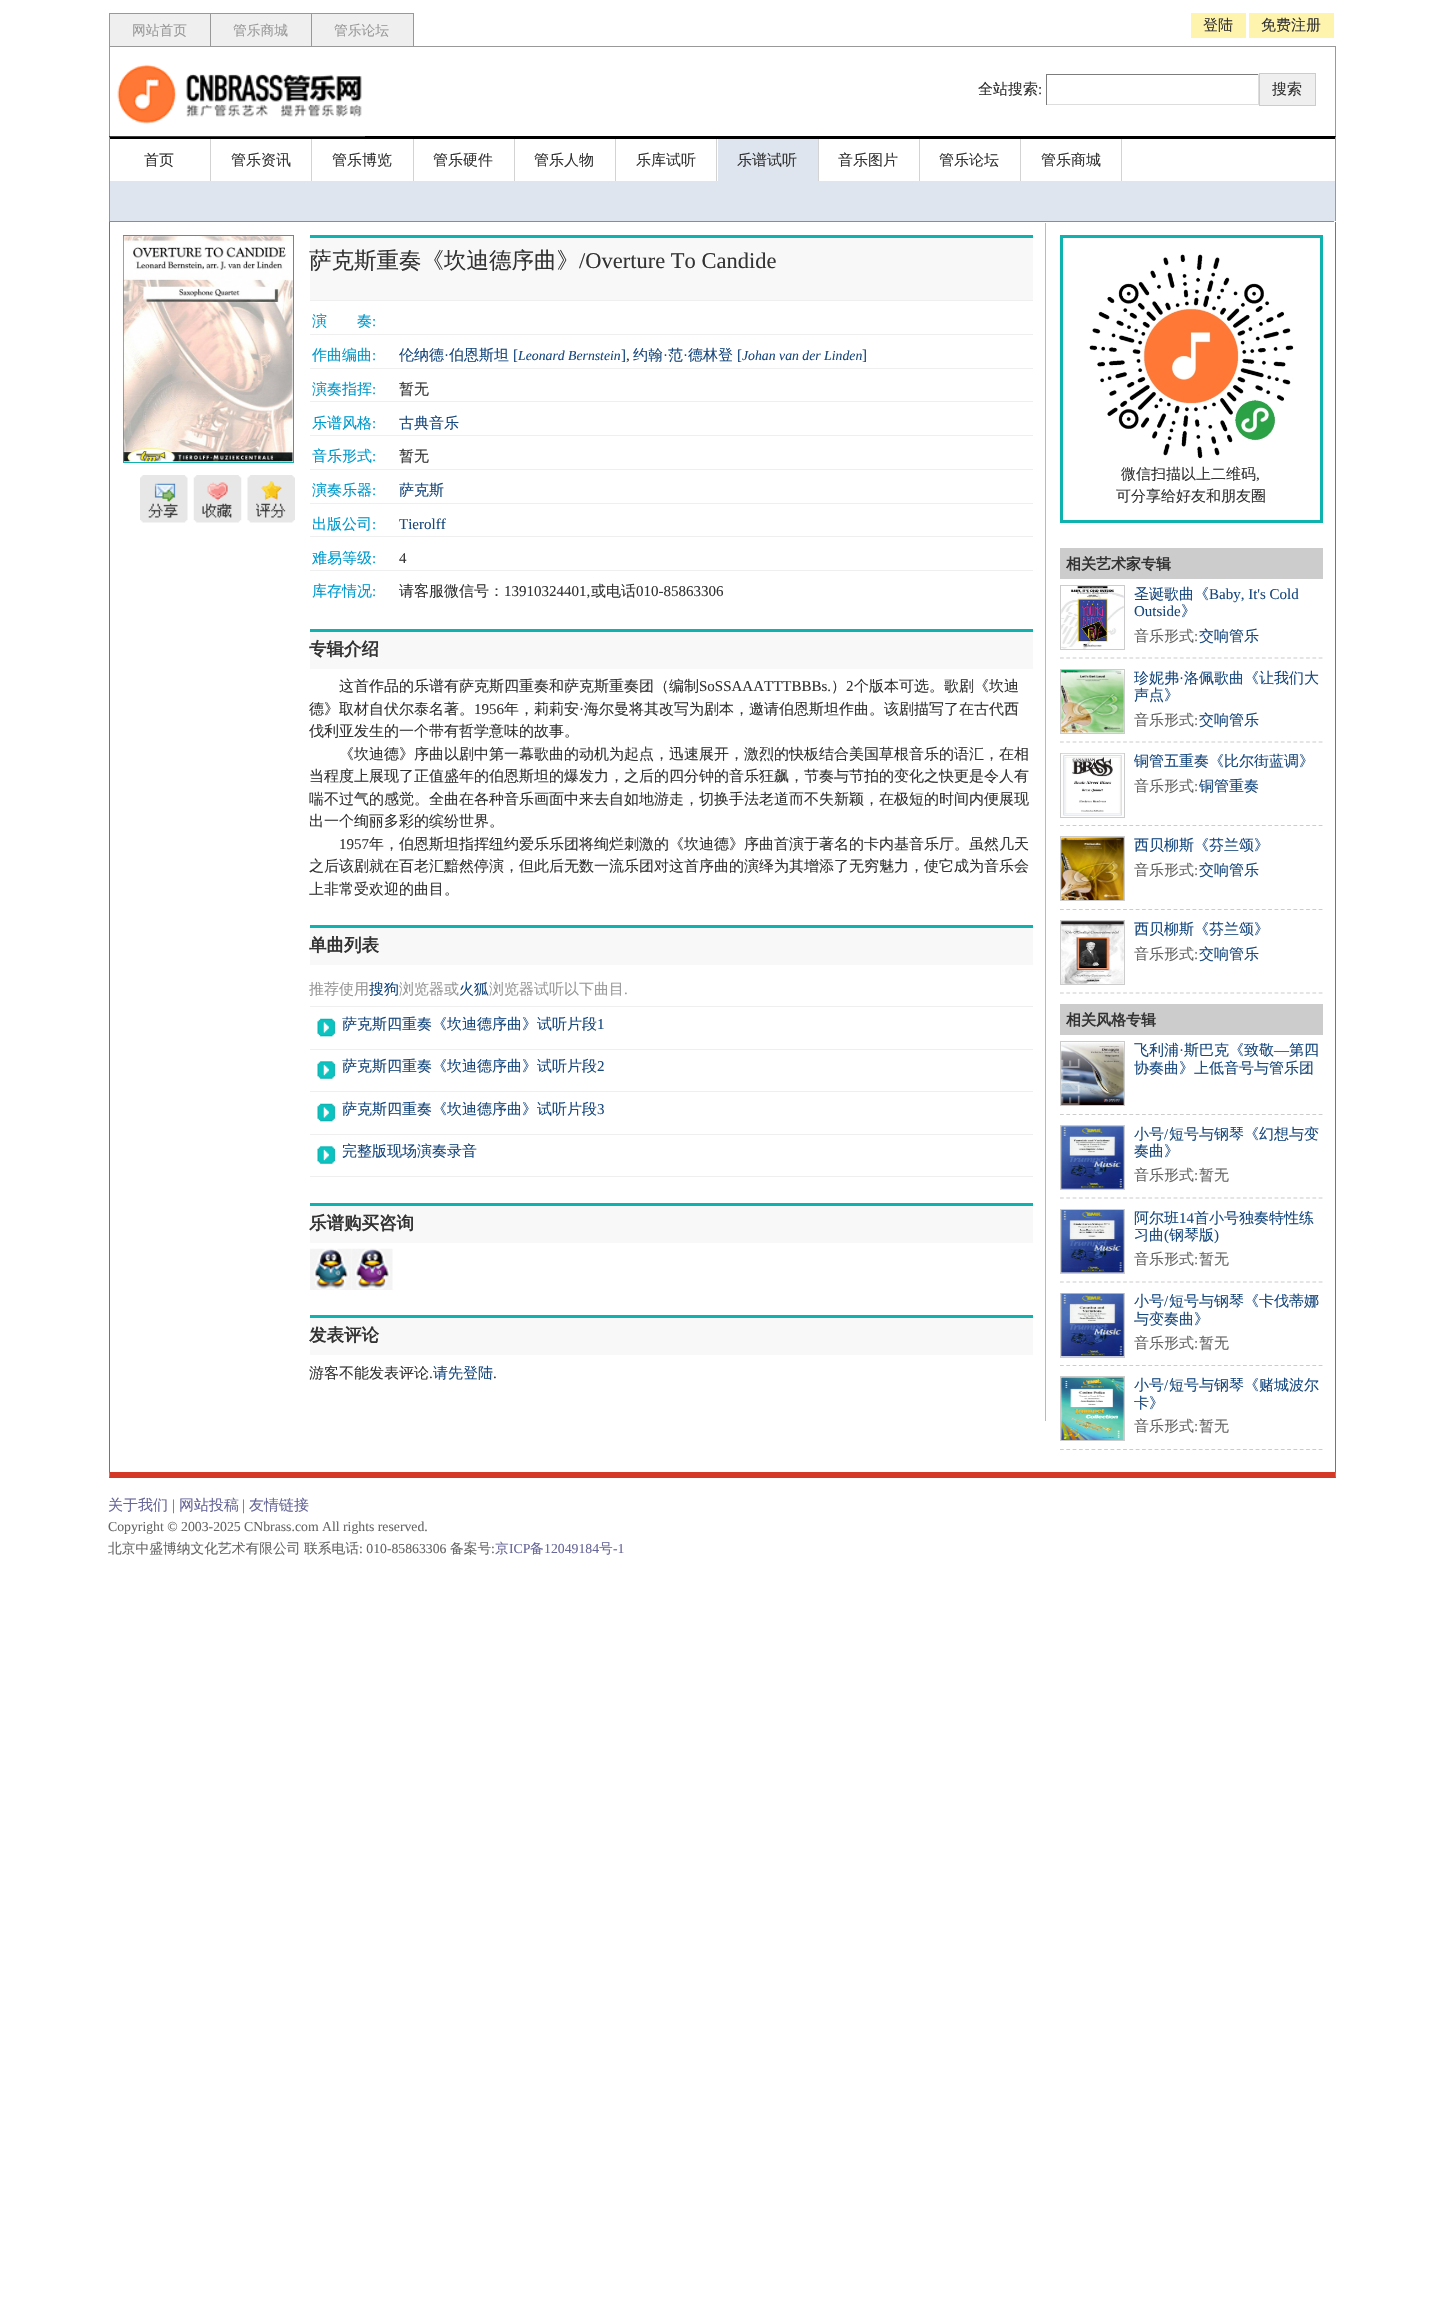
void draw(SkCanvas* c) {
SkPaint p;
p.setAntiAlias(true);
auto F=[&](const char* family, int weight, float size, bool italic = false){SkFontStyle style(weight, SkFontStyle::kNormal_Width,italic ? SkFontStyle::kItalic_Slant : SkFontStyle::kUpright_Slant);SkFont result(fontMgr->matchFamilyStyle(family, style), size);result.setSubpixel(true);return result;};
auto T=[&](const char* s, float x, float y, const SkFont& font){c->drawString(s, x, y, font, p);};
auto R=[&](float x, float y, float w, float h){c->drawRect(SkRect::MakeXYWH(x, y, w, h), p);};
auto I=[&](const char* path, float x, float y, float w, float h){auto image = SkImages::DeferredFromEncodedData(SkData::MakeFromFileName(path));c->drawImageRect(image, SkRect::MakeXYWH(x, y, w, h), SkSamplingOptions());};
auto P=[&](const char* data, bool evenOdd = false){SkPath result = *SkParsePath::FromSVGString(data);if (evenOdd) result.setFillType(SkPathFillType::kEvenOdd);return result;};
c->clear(0xffffffff);
p.setColor(0xff808ea7);
R(109,221,1225,1);
p.setColor(0xff999999);
R(109,13,1,33);
p.setColor(0xffefefef);
R(110,14,100,32);
p.setColor(0xff999999);
R(110,13,304,1);
R(210,13,1,33);
auto f1 = F("WenQuanYi Zen Hei",500,13.75);
T("网站首页",132,35,f1);
p.setColor(0xffefefef);
R(211,14,202,32);
p.setColor(0xff999999);
R(311,13,1,33);
T("管乐商城",233,35,f1);
R(413,13,1,33);
T("管乐论坛",334,35,f1);
p.setColor(0xfffff4ad);
R(1191,13,55,25);
auto f2 = F("WenQuanYi Zen Hei",500,15);
p.setColor(0xff333333);
T("登陆",1203,30,f2);
p.setColor(0xfffff4ad);
R(1249,13,85,25);
p.setColor(0xff333333);
T("免费注册",1261,30,f2);
p.setColor(0xff999999);
R(109,46,1227,1);
R(1335,46,1,90);
R(109,46,1,90);
p.setColor(0xff000000);
c->drawPath(P("M109 136h1227l-1 3h-1225z"),p);
I("1.png",110,64,255,73);
p.setColor(0xff333333);
T("全站搜索",978,94,f2);
auto f3 = F("Liberation Serif",400,15);
T(":",1038,94,f3);
p.setColor(0xff7c7c7c);
R(1046,74,213,1);
p.setColor(0xffdddddd);
R(1258,74,1,31);
R(1046,104,213,1);
p.setColor(0xff7c7c7c);
R(1046,74,1,31);
p.setColor(0xffefefef);
c->drawRect(SkRect::MakeXYWH(1259.5,73.5,56,32),p);
p.setStroke(true);
p.setStrokeWidth(1);
p.setColor(0xffcccccc);
c->drawRect(SkRect::MakeXYWH(1259.5,73.5,56,32),p);
p.setStroke(false);
p.setColor(0xff333333);
T("搜索",1272,94,f2);
p.setColor(0xff999999);
c->drawPath(P("M1336 136v85h-1v-82z"),p);
c->drawPath(P("M109 221v-85l1 3v82z"),p);
p.setColor(0xffd3d3d3);
R(210,139,1,42);
p.setColor(0xff333333);
T("首页",144,165,f2);
p.setColor(0xffd3d3d3);
R(311,139,1,42);
p.setColor(0xff333333);
T("管乐资讯",231,165,f2);
p.setColor(0xffd3d3d3);
R(413,139,1,42);
p.setColor(0xff333333);
T("管乐博览",332,165,f2);
p.setColor(0xffd3d3d3);
R(514,139,1,42);
p.setColor(0xff333333);
T("管乐硬件",433,165,f2);
p.setColor(0xffd3d3d3);
R(615,139,1,42);
p.setColor(0xff333333);
T("管乐人物",534,165,f2);
p.setColor(0xffd3d3d3);
R(716,139,1,42);
p.setColor(0xff333333);
T("乐库试听",636,165,f2);
p.setColor(0xffd3d3d3);
R(818,139,1,42);
p.setColor(0xffdee5ef);
R(718,139,100,42);
p.setColor(0xff333333);
T("乐谱试听",737,165,f2);
p.setColor(0xffd3d3d3);
R(919,139,1,42);
p.setColor(0xff333333);
T("音乐图片",838,165,f2);
p.setColor(0xffd3d3d3);
R(1020,139,1,42);
p.setColor(0xff333333);
T("管乐论坛",939,165,f2);
p.setColor(0xffd3d3d3);
R(1121,139,1,42);
p.setColor(0xff333333);
T("管乐商城",1041,165,f2);
p.setColor(0xffdee5ef);
R(110,181,1225,40);
p.setColor(0xff757575);
c->drawPath(P("M1336 222v1256l-1-6v-1250z"),p);
p.setColor(0xffd43927);
c->drawPath(P("M1336 1478h-1227l1-6h1225z"),p);
p.setColor(0xff757575);
c->drawPath(P("M109 1478v-1256h1v1250z"),p);
p.setColor(0xffbababa);
R(1045,223,1,1198);
p.setStroke(true);
p.setColor(0xff10b2b0);
c->drawRect(SkRect::MakeXYWH(123.5,235.5,170,227),p);
I("2.png",123,236,170,226);
I("3.png",140,475,48,48);
I("4.png",193,475,49,48);
I("5.png",247,475,48,48);
p.setStroke(false);
p.setColor(0xfff8f8f8);
R(310,238,723,62);
p.setColor(0xff10b2b0);
R(310,235,723,3);
auto f4 = F("WenQuanYi Zen Hei",500,22.5);
p.setColor(0xff333333);
T("萨克斯重奏《坎迪德序曲》",309,268,f4);
auto f5 = F("Liberation Serif",400,22.5);
T("/Overture To Candide",579,268,f5);
p.setColor(0xffefefef);
R(310,300,723,1);
p.setColor(0xff0099cc);
T("演　　奏",312,326,f2);
T(":",372,326,f3);
p.setColor(0xffefefef);
R(310,334,723,1);
p.setColor(0xff0099cc);
T("作曲编曲",312,360,f2);
T(":",372,360,f3);
p.setColor(0xff17487e);
T("伦纳德",399,360,f2);
T("·",444,360,f3);
T("伯恩斯坦",449,360,f2);
T("[",513,360,f3);
auto f6 = F("Liberation Serif",400,13.75,true);
T("Leonard Bernstein",518,360,f6);
T("]",621,360,f3);
T("约翰",633,360,f2);
T("·",663,360,f3);
T("范",668,360,f2);
T("·",683,360,f3);
T("德林登",688,360,f2);
T("[",737,360,f3);
T("Johan van der Linden",742,360,f6);
T("]",862,360,f3);
p.setColor(0xff333333);
T(",",626,360,f3);
p.setColor(0xffefefef);
R(310,368,723,1);
p.setColor(0xff0099cc);
T("演奏指挥",312,394,f2);
T(":",372,394,f3);
p.setColor(0xff333333);
T("暂无",399,394,f2);
p.setColor(0xffefefef);
R(310,401,723,1);
p.setColor(0xff0099cc);
T("乐谱风格",312,428,f2);
T(":",372,428,f3);
p.setColor(0xff17487e);
T("古典音乐",399,428,f2);
p.setColor(0xffefefef);
R(310,435,723,1);
p.setColor(0xff0099cc);
T("音乐形式",312,461,f2);
T(":",372,461,f3);
p.setColor(0xff333333);
T("暂无",399,461,f2);
p.setColor(0xffefefef);
R(310,469,723,1);
p.setColor(0xff0099cc);
T("演奏乐器",312,495,f2);
T(":",372,495,f3);
p.setColor(0xff17487e);
T("萨克斯",399,495,f2);
p.setColor(0xffefefef);
R(310,503,723,1);
p.setColor(0xff0099cc);
T("出版公司",312,529,f2);
T(":",372,529,f3);
p.setColor(0xff17487e);
T("Tierolff",399,529,f3);
p.setColor(0xffefefef);
R(310,536,723,1);
p.setColor(0xff0099cc);
T("难易等级",312,563,f2);
T(":",372,563,f3);
p.setColor(0xff333333);
T("4",399,563,f3);
p.setColor(0xffefefef);
R(310,570,723,1);
p.setColor(0xff0099cc);
T("库存情况",312,596,f2);
T(":",372,596,f3);
p.setColor(0xff333333);
T("请客服微信号：",399,596,f2);
T("13910324401,",504,596,f3);
T("或电话",591,596,f2);
T("010-85863306",636,596,f3);
p.setColor(0xfff8f8f8);
R(310,632,723,37);
p.setColor(0xff10b2b0);
R(310,629,723,3);
auto f7 = F("WenQuanYi Zen Hei",700,17.5);
p.setColor(0xff333333);
T("专辑介绍",309,655,f7);
T("这首作品的乐谱有萨克斯四重奏和萨克斯重奏团（编制",339,691,f2);
T("SoSSAAATTTBBBs.",699,691,f3);
T("）",831,691,f2);
T("2",846,691,f3);
T("个版本可选。歌剧《坎迪",854,691,f2);
T("德》取材自伏尔泰名著。",309,714,f2);
T("1956",474,714,f3);
T("年，莉莉安",504,714,f2);
T("·",579,714,f3);
T("海尔曼将其改写为剧本，邀请伯恩斯坦作曲。该剧描写了在古代西",584,714,f2);
T("伐利亚发生的一个带有哲学意味的故事。",309,736,f2);
T("《坎迪德》序曲以剧中第一幕歌曲的动机为起点，迅速展开，激烈的快板结合美国草根音乐的语汇，在相",339,759,f2);
T("当程度上展现了正值盛年的伯恩斯坦的爆发力，之后的四分钟的音乐狂飙，节奏与节拍的变化之快更是令人有",309,781,f2);
T("喘不过气的感觉。全曲在各种音乐画面中来去自如地游走，切换手法老道而不失新颖，在极短的时间内便展现",309,804,f2);
T("出一个绚丽多彩的缤纷世界。",309,826,f2);
T("1957",339,849,f3);
T("年，伯恩斯坦指挥纽约爱乐乐团将绚烂刺激的《坎迪德》序曲首演于著名的卡内基音乐厅。虽然几天",369,849,f2);
T("之后该剧就在百老汇黯然停演，但此后无数一流乐团对这首序曲的演绎为其增添了无穷魅力，使它成为音乐会",309,871,f2);
T("上非常受欢迎的曲目。",309,894,f2);
p.setColor(0xfff8f8f8);
R(310,928,723,37);
p.setColor(0xff10b2b0);
R(310,925,723,3);
p.setColor(0xff333333);
T("单曲列表",309,951,f7);
p.setColor(0xffefefef);
R(310,1006,723,1);
p.setColor(0xff999999);
T("推荐使用",309,994,f2);
p.setColor(0xff17487e);
T("搜狗",369,994,f2);
p.setColor(0xff999999);
T("浏览器或",399,994,f2);
p.setColor(0xff17487e);
T("火狐",459,994,f2);
p.setColor(0xff999999);
T("浏览器试听以下曲目",489,994,f2);
T(".",624,994,f3);
p.setColor(0xffefefef);
R(310,1049,723,1);
I("6.png",317,1018,19,19);
p.setColor(0xff17487e);
T("萨克斯四重奏《坎迪德序曲》试听片段",342,1029,f2);
T("1",597,1029,f3);
p.setColor(0xffefefef);
R(310,1091,723,1);
I("7.png",317,1061,19,18);
p.setColor(0xff17487e);
T("萨克斯四重奏《坎迪德序曲》试听片段",342,1071,f2);
T("2",597,1071,f3);
p.setColor(0xffefefef);
R(310,1134,723,1);
I("6.png",317,1103,19,19);
p.setColor(0xff17487e);
T("萨克斯四重奏《坎迪德序曲》试听片段",342,1114,f2);
T("3",597,1114,f3);
p.setColor(0xffefefef);
R(310,1176,723,1);
I("7.png",317,1146,19,18);
p.setColor(0xff17487e);
T("完整版现场演奏录音",342,1156,f2);
p.setColor(0xfff8f8f8);
R(310,1206,723,37);
p.setColor(0xff10b2b0);
R(310,1203,723,3);
p.setColor(0xff333333);
T("乐谱购买咨询",309,1229,f7);
I("8.png",310,1248,41,42);
I("9.png",351,1248,42,42);
p.setColor(0xfff8f8f8);
R(310,1318,723,37);
p.setColor(0xff10b2b0);
R(310,1315,723,3);
p.setColor(0xff333333);
T("发表评论",309,1341,f7);
T("游客不能发表评论",309,1378,f2);
T(".",429,1378,f3);
p.setColor(0xff17487e);
T("请先登陆",433,1378,f2);
p.setColor(0xff333333);
T(".",493,1378,f3);
p.setStroke(true);
p.setStrokeWidth(3);
p.setColor(0xff10b2b0);
c->drawRect(SkRect::MakeXYWH(1061.5,236.5,260,285),p);
I("10.png",1089,254,205,205);
p.setStroke(false);
p.setColor(0xff333333);
T("微信扫描以上二维码",1121,479,f2);
T(",",1256,479,f3);
T("可分享给好友和朋友圈",1116,501,f2);
p.setColor(0xffcccccc);
R(1060,548,263,31);
auto f8 = F("WenQuanYi Zen Hei",700,15);
p.setColor(0xff333333);
T("相关艺术家专辑",1066,569,f8);
p.setStroke(true);
p.setStrokeWidth(1.2);
p.setColor(0xffcccccc);
p.setPathEffect(SkDashPathEffect::Make({{3.75f,2.56f}}, 0));
c->drawPath(P("M1060 658h262.5"),p);
p.setPathEffect(nullptr);
p.setStrokeWidth(1);
c->drawRect(SkRect::MakeXYWH(1060.5,585.5,64,64),p);
I("11.png",1061,586,63,63);
p.setStroke(false);
p.setColor(0xff17487e);
T("圣诞歌曲《",1134,599,f2);
T("Baby, It's Cold",1209,599,f3);
T("Outside",1134,616,f3);
T("》",1181,616,f2);
p.setColor(0xff666666);
T("音乐形式",1134,641,f2);
T(":",1194,641,f3);
p.setColor(0xff17487e);
T("交响管乐",1199,641,f2);
p.setStroke(true);
p.setStrokeWidth(1.2);
p.setColor(0xffcccccc);
p.setPathEffect(SkDashPathEffect::Make({{3.75f,2.56f}}, 0));
c->drawPath(P("M1060 742h262.5"),p);
p.setPathEffect(nullptr);
p.setStrokeWidth(1);
c->drawRect(SkRect::MakeXYWH(1060.5,669.5,64,64),p);
I("12.png",1061,670,63,63);
p.setStroke(false);
p.setColor(0xff17487e);
T("珍妮弗",1134,683,f2);
T("·",1179,683,f3);
T("洛佩歌曲《让我们大",1184,683,f2);
T("声点》",1134,700,f2);
p.setColor(0xff666666);
T("音乐形式",1134,725,f2);
T(":",1194,725,f3);
p.setColor(0xff17487e);
T("交响管乐",1199,725,f2);
p.setStroke(true);
p.setStrokeWidth(1.2);
p.setColor(0xffcccccc);
p.setPathEffect(SkDashPathEffect::Make({{3.75f,2.56f}}, 0));
c->drawPath(P("M1060 825.5h262.5"),p);
p.setPathEffect(nullptr);
p.setStrokeWidth(1);
c->drawRect(SkRect::MakeXYWH(1060.5,753.5,64,64),p);
I("13.png",1061,753,63,63);
p.setStroke(false);
p.setColor(0xff17487e);
T("铜管五重奏《比尔街蓝调》",1134,766,f2);
p.setColor(0xff666666);
T("音乐形式",1134,791,f2);
T(":",1194,791,f3);
p.setColor(0xff17487e);
T("铜管重奏",1199,791,f2);
p.setStroke(true);
p.setStrokeWidth(1.2);
p.setColor(0xffcccccc);
p.setPathEffect(SkDashPathEffect::Make({{3.75f,2.56f}}, 0));
c->drawPath(P("M1060 909.5h262.5"),p);
p.setPathEffect(nullptr);
p.setStrokeWidth(1);
c->drawRect(SkRect::MakeXYWH(1060.5,836.5,64,64),p);
I("14.png",1061,837,63,63);
p.setStroke(false);
p.setColor(0xff17487e);
T("西贝柳斯《芬兰颂》",1134,850,f2);
p.setColor(0xff666666);
T("音乐形式",1134,875,f2);
T(":",1194,875,f3);
p.setColor(0xff17487e);
T("交响管乐",1199,875,f2);
p.setStroke(true);
p.setStrokeWidth(1.2);
p.setColor(0xffcccccc);
p.setPathEffect(SkDashPathEffect::Make({{3.75f,2.56f}}, 0));
c->drawPath(P("M1060 993h262.5"),p);
p.setPathEffect(nullptr);
p.setStrokeWidth(1);
c->drawRect(SkRect::MakeXYWH(1060.5,920.5,64,64),p);
I("15.png",1061,921,63,63);
p.setStroke(false);
p.setColor(0xff17487e);
T("西贝柳斯《芬兰颂》",1134,934,f2);
p.setColor(0xff666666);
T("音乐形式",1134,959,f2);
T(":",1194,959,f3);
p.setColor(0xff17487e);
T("交响管乐",1199,959,f2);
p.setColor(0xffcccccc);
R(1060,1004,263,31);
p.setColor(0xff333333);
T("相关风格专辑",1066,1025,f8);
p.setStroke(true);
p.setStrokeWidth(1.2);
p.setColor(0xffcccccc);
p.setPathEffect(SkDashPathEffect::Make({{3.75f,2.56f}}, 0));
c->drawPath(P("M1060 1114.5h262.5"),p);
p.setPathEffect(nullptr);
p.setStrokeWidth(1);
c->drawRect(SkRect::MakeXYWH(1060.5,1041.5,64,64),p);
I("16.png",1061,1042,63,63);
p.setStroke(false);
p.setColor(0xff17487e);
T("飞利浦",1134,1055,f2);
T("·",1179,1055,f3);
T("斯巴克《致敬",1184,1055,f2);
T("—",1274,1055,f3);
T("第四",1289,1055,f2);
T("协奏曲》上低音号与管乐团",1134,1073,f2);
p.setStroke(true);
p.setStrokeWidth(1.2);
p.setColor(0xffcccccc);
p.setPathEffect(SkDashPathEffect::Make({{3.75f,2.56f}}, 0));
c->drawPath(P("M1060 1198h262.5"),p);
p.setPathEffect(nullptr);
p.setStrokeWidth(1);
c->drawRect(SkRect::MakeXYWH(1060.5,1125.5,64,64),p);
I("17.png",1061,1126,63,63);
p.setStroke(false);
p.setColor(0xff17487e);
T("小号",1134,1139,f2);
T("/",1164,1139,f3);
T("短号与钢琴《幻想与变",1169,1139,f2);
T("奏曲》",1134,1156,f2);
p.setColor(0xff666666);
T("音乐形式",1134,1180,f2);
T(":",1194,1180,f3);
T("暂无",1199,1180,f2);
p.setStroke(true);
p.setStrokeWidth(1.2);
p.setColor(0xffcccccc);
p.setPathEffect(SkDashPathEffect::Make({{3.75f,2.56f}}, 0));
c->drawPath(P("M1060 1282h262.5"),p);
p.setPathEffect(nullptr);
p.setStrokeWidth(1);
c->drawRect(SkRect::MakeXYWH(1060.5,1209.5,64,64),p);
I("18.png",1061,1210,63,63);
p.setStroke(false);
p.setColor(0xff17487e);
T("阿尔班",1134,1223,f2);
T("14",1179,1223,f3);
T("首小号独奏特性练",1194,1223,f2);
T("习曲",1134,1240,f2);
T("(",1164,1240,f3);
T("钢琴版",1169,1240,f2);
T(")",1214,1240,f3);
p.setColor(0xff666666);
T("音乐形式",1134,1264,f2);
T(":",1194,1264,f3);
T("暂无",1199,1264,f2);
p.setStroke(true);
p.setStrokeWidth(1.2);
p.setColor(0xffcccccc);
p.setPathEffect(SkDashPathEffect::Make({{3.75f,2.56f}}, 0));
c->drawPath(P("M1060 1365.5h262.5"),p);
p.setPathEffect(nullptr);
p.setStrokeWidth(1);
c->drawRect(SkRect::MakeXYWH(1060.5,1293.5,64,64),p);
I("19.png",1061,1293,63,64);
p.setStroke(false);
p.setColor(0xff17487e);
T("小号",1134,1306,f2);
T("/",1164,1306,f3);
T("短号与钢琴《卡伐蒂娜",1169,1306,f2);
T("与变奏曲》",1134,1324,f2);
p.setColor(0xff666666);
T("音乐形式",1134,1348,f2);
T(":",1194,1348,f3);
T("暂无",1199,1348,f2);
p.setStroke(true);
p.setStrokeWidth(1.2);
p.setColor(0xffcccccc);
p.setPathEffect(SkDashPathEffect::Make({{3.75f,2.56f}}, 0));
c->drawPath(P("M1060 1449.5h262.5"),p);
p.setPathEffect(nullptr);
p.setStrokeWidth(1);
c->drawRect(SkRect::MakeXYWH(1060.5,1376.5,64,64),p);
I("20.png",1061,1377,63,63);
p.setStroke(false);
p.setColor(0xff17487e);
T("小号",1134,1390,f2);
T("/",1164,1390,f3);
T("短号与钢琴《赌城波尔",1169,1390,f2);
T("卡》",1134,1408,f2);
p.setColor(0xff666666);
T("音乐形式",1134,1431,f2);
T(":",1194,1431,f3);
T("暂无",1199,1431,f2);
p.setColor(0xff666699);
T("关于我们",108,1510,f2);
p.setColor(0xff666666);
T("|",172,1510,f3);
p.setColor(0xff666699);
T("网站投稿",179,1510,f2);
p.setColor(0xff666666);
T("|",242,1510,f3);
p.setColor(0xff666699);
T("友情链接",249,1510,f2);
auto f9 = F("Liberation Serif",400,13.75);
p.setColor(0xff666666);
T("Copyright © 2003-2025 CNbrass.com All rights reserved.",108,1531,f9);
T("北京中盛博纳文化艺术有限公司",108,1553,f1);
T("联系电话",304,1553,f1);
T(": 010-85863306",359,1553,f9);
T("备案号",450,1553,f1);
T(":",491,1553,f9);
p.setColor(0xff666699);
T("京",495,1553,f1);
T("ICP",509,1553,f9);
T("备",530,1553,f1);
T("12049184",544,1553,f9);
T("号",599,1553,f1);
T("-1",613,1553,f9);
}
